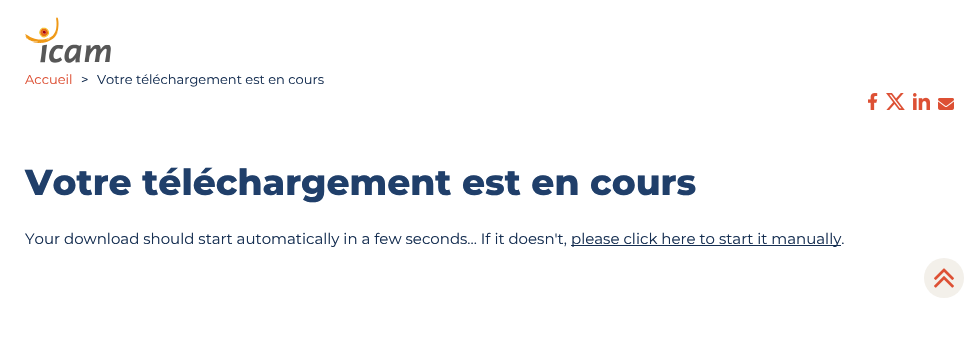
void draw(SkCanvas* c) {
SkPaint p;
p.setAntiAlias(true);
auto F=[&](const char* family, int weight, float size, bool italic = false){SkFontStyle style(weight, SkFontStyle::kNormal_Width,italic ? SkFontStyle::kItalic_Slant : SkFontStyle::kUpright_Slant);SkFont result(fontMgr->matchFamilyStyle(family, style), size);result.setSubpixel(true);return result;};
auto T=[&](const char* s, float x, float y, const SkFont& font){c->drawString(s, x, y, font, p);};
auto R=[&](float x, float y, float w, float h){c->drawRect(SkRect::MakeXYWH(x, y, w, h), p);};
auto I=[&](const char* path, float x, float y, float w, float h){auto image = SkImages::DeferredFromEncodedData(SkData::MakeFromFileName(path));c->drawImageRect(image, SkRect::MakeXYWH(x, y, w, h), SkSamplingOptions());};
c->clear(0xffffffff);
I("1.png",25,17,86,46);
auto f1 = F("Montserrat",400,13);
p.setColor(0xffdd5034);
T("Accueil",25,84,f1);
p.setColor(0xff152e51);
T(">",81,84,f1);
T("Votre téléchargement est en cours",97,84,f1);
I("2.png",868,93,10,17);
I("3.png",886,93,19,17);
I("4.png",913,93,17,17);
I("5.png",938,98,16,12);
auto f2 = F("Montserrat",800,36);
p.setColor(0xff203f6a);
T("Votre téléchargement est en cours",25,195,f2);
auto f3 = F("Montserrat",400,15);
p.setColor(0xff152e51);
T("Your download should start automatically in a few seconds... If it doesn't,",25,244,f3);
R(571,245,270,1);
T("please click here to start it manually.",571,244,f3);
p.setColor(0xfff3f0ea);
c->drawCircle(944,278,20,p);
I("6.png",934,268,20,20);
}
